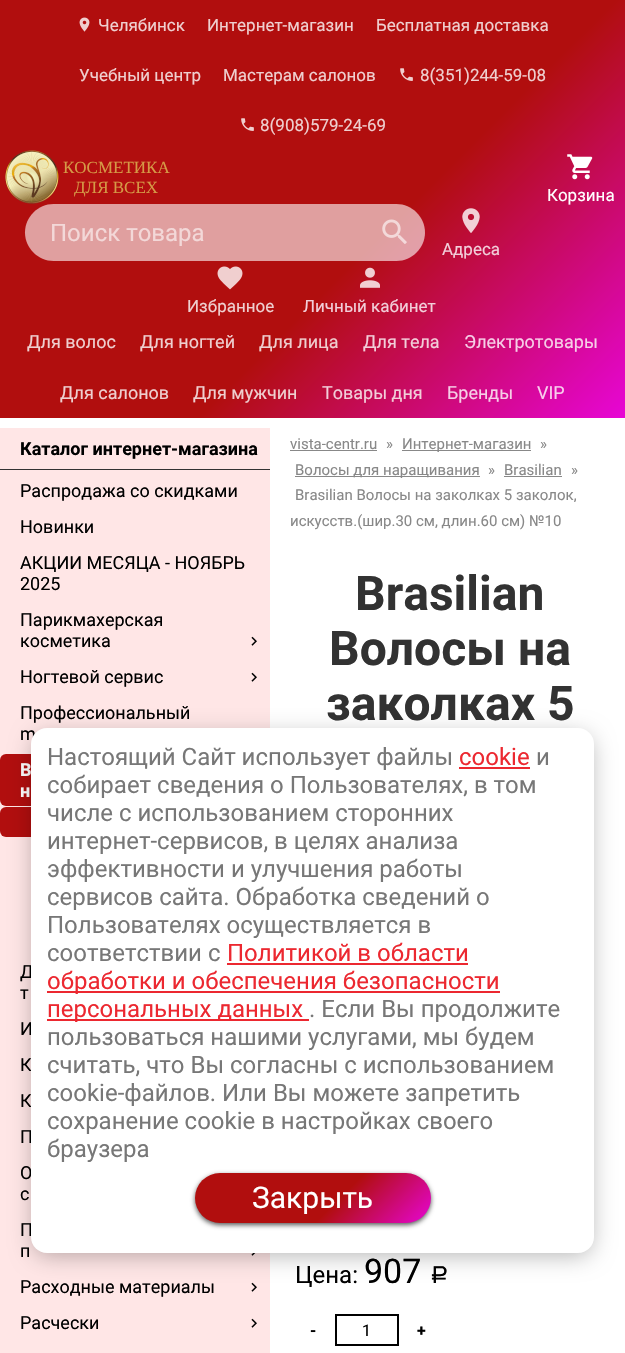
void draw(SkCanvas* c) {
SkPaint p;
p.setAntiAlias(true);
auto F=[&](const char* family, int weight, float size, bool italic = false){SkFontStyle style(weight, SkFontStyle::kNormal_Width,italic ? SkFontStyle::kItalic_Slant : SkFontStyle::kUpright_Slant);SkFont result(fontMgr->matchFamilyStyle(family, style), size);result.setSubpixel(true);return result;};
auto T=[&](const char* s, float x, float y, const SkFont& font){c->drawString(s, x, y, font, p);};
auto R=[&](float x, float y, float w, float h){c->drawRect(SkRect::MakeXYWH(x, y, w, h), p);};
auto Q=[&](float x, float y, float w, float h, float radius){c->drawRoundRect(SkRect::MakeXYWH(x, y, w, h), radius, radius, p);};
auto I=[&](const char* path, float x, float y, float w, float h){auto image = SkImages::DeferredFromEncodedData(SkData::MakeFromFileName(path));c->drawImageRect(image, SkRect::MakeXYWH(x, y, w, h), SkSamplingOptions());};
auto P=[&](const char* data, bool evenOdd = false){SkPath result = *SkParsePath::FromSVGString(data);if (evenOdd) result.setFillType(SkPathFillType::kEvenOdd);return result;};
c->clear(0xffffffff);
{
const SkColor colors[] = {0xffb10e0e,0xffe706d6};
const float stops[] = {.59,1};
const SkPoint ends[] = {{52,-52}, {573,470}};
p.setShader(SkGradientShader::MakeLinear(ends, colors, stops, 2, SkTileMode::kClamp));
p.setAlpha(255);
}
R(0,0,625,418);
I("1.png",79,17,11,15);
auto f1 = F("Roboto",400,17);
p.setShader(nullptr);
p.setColor(0xffefcfcf);
T("Челябинск",98,31,f1);
T("Интернет-магазин",207,31,f1);
T("Бесплатная доставка",376,31,f1);
T("Учебный центр",79,81,f1);
T("Мастерам салонов",223,81,f1);
I("2.png",400,68,13,13);
T("8(351)244-59-08",420,81,f1);
I("2.png",241,118,13,13);
T("8(908)579-24-69",260,131,f1);
I("3.png",5,150,54,54);
auto f2 = F("Liberation Serif",400,17);
p.setColor(0xffd59946);
T("КОСМЕТИКА",63,173,f2);
T("ДЛЯ ВСЕХ",74,193,f2);
I("4.png",567,154,26,26);
p.setColor(0xffffffff);
T("Корзина",547,201,f1);
p.setColor(0x99ffffff);
c->drawPath(P("M53.5 204h311.5v57h-311.5c-15.5 0-28.5-13-28.5-28.5c0-15.5 13-28.5 28.5-28.5z"),p);
auto f3 = F("Roboto",400,24);
p.setColor(0xfff3d8d8);
T("Поиск товара",50,241,f3);
p.setColor(0x99ffffff);
c->drawPath(P("M365 204h31.5c15.5 0 28.5 13 28.5 28.5c0 15.5-13 28.5-28.5 28.5h-31.5z"),p);
I("5.png",382,219,25,25);
I("6.png",462,208,18,25);
p.setColor(0xfff2ced9);
T("Адреса",442,255,f1);
I("7.png",217,266,26,24);
p.setColor(0xffefcfcf);
T("Избранное",187,312,f1);
I("8.png",360,267,20,21);
p.setColor(0xfff2ced9);
T("Личный кабинет",303,312,f1);
auto f4 = F("Roboto",400,18);
p.setColor(0xffefcfcf);
T("Для волос",27,348,f4);
T("Для ногтей",140,348,f4);
T("Для лица",259,348,f4);
p.setColor(0xfff2ced9);
T("Для тела",363,348,f4);
p.setColor(0xfff6cee7);
T("Электротовары",464,348,f4);
p.setColor(0xffefcfcf);
T("Для салонов",60,399,f4);
T("Для мужчин",193,399,f4);
p.setColor(0xfff2ced9);
T("Товары дня",322,399,f4);
p.setColor(0xfff6cee7);
T("Бренды",447,399,f4);
p.setColor(0xfff8ceed);
T("VIP",537,399,f4);
p.setColor(0xffffe6e6);
R(0,428,270,925);
p.setColor(0xff333333);
R(0,469,270,1);
auto f5 = F("Roboto",700,18);
p.setColor(0xff000000);
T("Каталог интернет-магазина",20,455,f5);
T("Распродажа со скидками",20,497,f4);
T("Новинки",20,533,f4);
T("АКЦИИ МЕСЯЦА - НОЯБРЬ",20,569,f4);
T("2025",20,590,f4);
T("Парикмахерская",20,626,f4);
T("косметика",20,647,f4);
I("9.png",251,636,6,10);
T("Ногтевой сервис",20,683,f4);
I("9.png",251,672,6,10);
T("Профессиональный",20,719,f4);
T("m",20,740,f4);
p.setColor(0xffb10e0e);
Q(0,754,270,52,6);
p.setColor(0xffffffff);
T("В",20,776,f5);
T("н",20,797,f5);
p.setColor(0xffb10e0e);
Q(0,807,270,30,6);
p.setColor(0xff000000);
T("Д",20,978,f4);
T("т",20,999,f4);
T("И",20,1035,f4);
T("К",20,1071,f4);
T("К",20,1107,f4);
T("П",20,1143,f4);
T("О",20,1179,f4);
T("с",20,1200,f4);
T("П",20,1236,f4);
T("п",20,1257,f4);
I("10.png",251,1253,5,3);
T("Расходные материалы",20,1293,f4);
I("9.png",251,1282,6,10);
T("Расчески",20,1329,f4);
I("9.png",251,1318,6,10);
auto f6 = F("Roboto",400,15);
p.setColor(0xff888888);
T("vista-centr.ru",290,449,f6);
R(290,450,87,1);
T("»",386,449,f6);
R(402,450,129,1);
T("Интернет-магазин",402,449,f6);
T("»",540,449,f6);
R(295,476,185,1);
T("Волосы для наращивания",295,475,f6);
T("»",488,475,f6);
T("Brasilian",504,475,f6);
R(504,476,58,1);
T("»",571,475,f6);
T("Brasilian Волосы на заколках 5 заколок,",295,500,f6);
T("искусств.(шир.30 см, длин.60 см) №10",290,526,f6);
auto f7 = F("Roboto",700,48);
p.setColor(0xff323232);
T("Brasilian",355,610,f7);
T("Волосы на",329,665,f7);
T("заколках 5",326,720,f7);
p.setColor(0xff000000);
T("Цена:",295,1283,f3);
auto f8 = F("Roboto",400,34);
T("907",364,1283,f8);
auto f9 = F("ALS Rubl",400,24);
T("a",430,1283,f9);
auto f10 = F("Roboto",700,16);
T("-",310,1336,f10);
p.setStroke(true);
p.setStrokeWidth(2);
c->drawRect(SkRect::MakeXYWH(336,1315,62,30),p);
auto f11 = F("Roboto",400,16);
p.setStroke(false);
T("1",362,1336,f11);
T("+",417,1336,f10);
p.setColor(0x4d000000);
p.setMaskFilter(SkMaskFilter::MakeBlur(kNormal_SkBlurStyle, 11.5));
c->drawRoundRect(SkRect::MakeXYWH(34,736,557,519),13,13,p);
p.setMaskFilter(nullptr);
p.setColor(0xffffffff);
Q(31,728,563,525,16);
p.setColor(0xff777777);
T("Настоящий Сайт использует файлы",47,765,f3);
p.setColor(0xffec2830);
T("cookie",459,765,f3);
R(459,767,71,2);
p.setColor(0xff777777);
T("и",536,765,f3);
T("собирает сведения о Пользователях, в том",47,793,f3);
T("числе с использованием сторонних",47,821,f3);
T("интернет-сервисов, в целях анализа",47,849,f3);
T("эффективности и улучшения работы",47,877,f3);
T("сервисов сайта. Обработка сведений о",47,905,f3);
T("Пользователях осуществляется в",47,933,f3);
T("соответствии с",47,961,f3);
p.setColor(0xffec2830);
T("Политикой в области",227,961,f3);
R(227,963,241,2);
R(47,991,453,2);
T("обработки и обеспечения безопасности",47,989,f3);
R(47,1019,262,2);
T("персональных данных",47,1017,f3);
p.setColor(0xff777777);
T(". Если Вы продолжите",309,1017,f3);
T("пользоваться нашими услугами, мы будем",47,1045,f3);
T("считать, что Вы согласны с использованием",47,1073,f3);
T("cookie-файлов. Или Вы можете запретить",47,1101,f3);
T("сохранение cookie в настройках своего",47,1129,f3);
T("браузера",47,1157,f3);
p.setColor(0xff555555);
p.setMaskFilter(SkMaskFilter::MakeBlur(kNormal_SkBlurStyle, 2.5));
c->drawRoundRect(SkRect::MakeXYWH(195,1175,236,50),25,25,p);
p.setMaskFilter(nullptr);
{
const SkColor colors[] = {0xffb10e0e,0xffe706d6};
const float stops[] = {.59,1};
const SkPoint ends[] = {{242,1127}, {385,1270}};
p.setShader(SkGradientShader::MakeLinear(ends, colors, stops, 2, SkTileMode::kClamp));
p.setAlpha(255);
}
Q(195,1173,236,50,25);
auto f12 = F("Roboto",400,30);
p.setShader(nullptr);
p.setColor(0xffffffff);
T("Закрыть",252,1208,f12);
}
